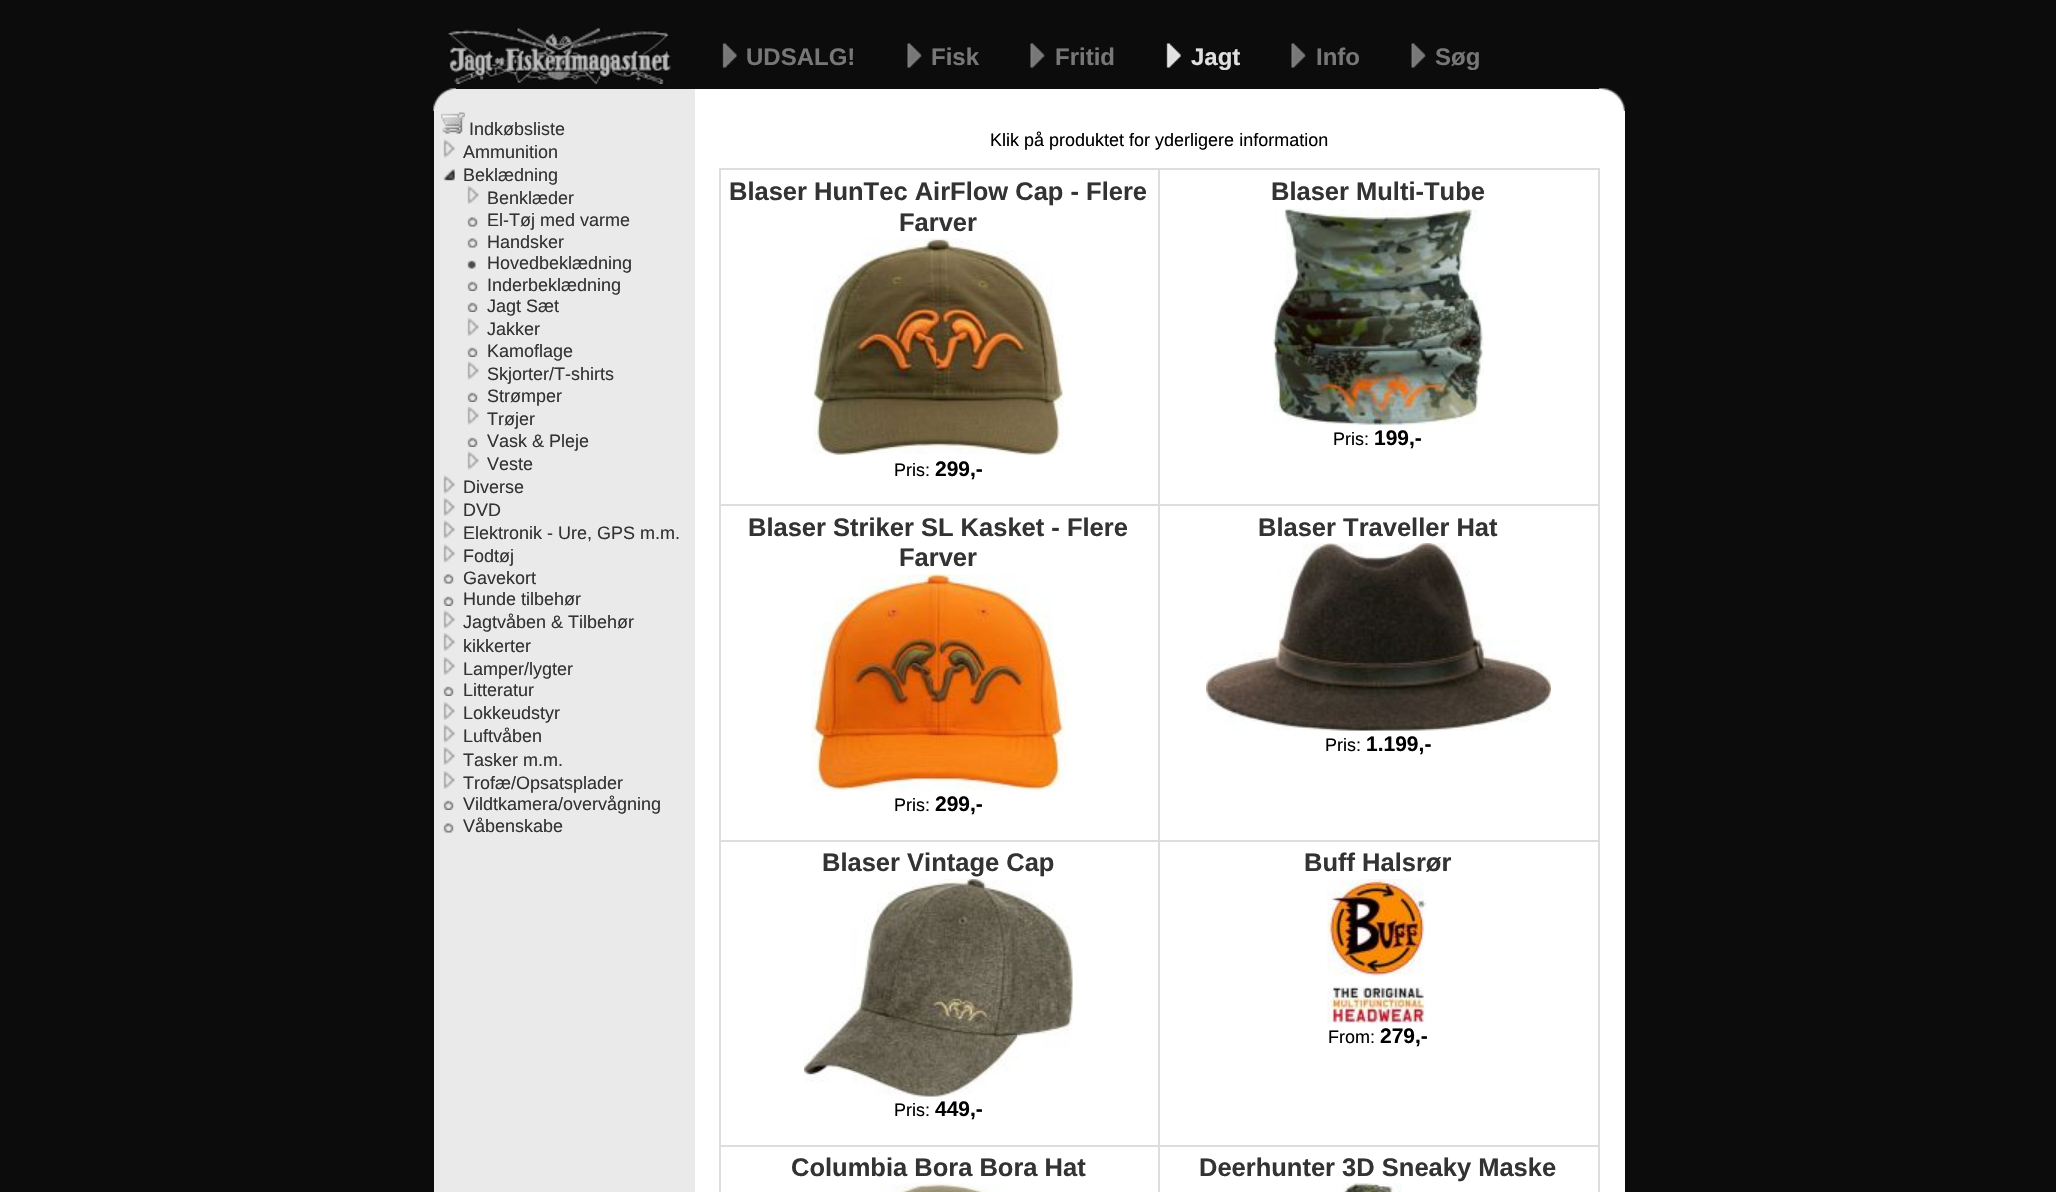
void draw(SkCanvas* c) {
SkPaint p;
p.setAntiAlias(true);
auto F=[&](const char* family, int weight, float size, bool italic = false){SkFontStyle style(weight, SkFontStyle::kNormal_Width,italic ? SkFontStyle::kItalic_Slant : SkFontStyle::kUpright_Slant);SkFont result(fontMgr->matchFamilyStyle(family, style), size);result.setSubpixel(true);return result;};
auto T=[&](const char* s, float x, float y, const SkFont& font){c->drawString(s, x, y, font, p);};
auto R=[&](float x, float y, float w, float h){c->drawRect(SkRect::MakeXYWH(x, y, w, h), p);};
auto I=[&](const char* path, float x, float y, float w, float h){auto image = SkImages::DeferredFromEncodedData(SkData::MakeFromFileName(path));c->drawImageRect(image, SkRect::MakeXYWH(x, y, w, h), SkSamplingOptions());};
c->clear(0xff0c0c0c);
I("1.png",448,28,223,56);
I("2.png",722,43,15,25);
auto f1 = F("Liberation Sans",700,24);
p.setColor(0xff777777);
T("UDSALG!",746,65,f1);
I("3.png",907,43,15,25);
T("Fisk",931,65,f1);
I("3.png",1030,43,15,25);
T("Fritid",1055,65,f1);
I("4.png",1166,43,15,25);
p.setColor(0xffe0e0e0);
T("Jagt",1191,65,f1);
I("3.png",1291,43,15,25);
p.setColor(0xff777777);
T("Info",1316,65,f1);
I("5.png",1411,43,15,25);
T("Søg",1435,65,f1);
p.setColor(0xffeaeaea);
R(456,89,239,22);
I("6.png",433,88,23,23);
p.setColor(0xffffffff);
R(695,89,904,22);
I("7.png",1599,88,26,23);
p.setColor(0xffeaeaea);
R(434,111,261,1081);
I("8.png",441,112,24,22);
auto f2 = F("Liberation Sans",400,18);
p.setColor(0xff333333);
T("Indkøbsliste",469,135,f2);
I("9.png",443,139,12,19);
T("Ammunition",463,158,f2);
I("10.png",443,169,12,12);
T("Beklædning",463,181,f2);
I("11.png",467,186,12,18);
T("Benklæder",487,204,f2);
I("12.png",467,217,11,10);
T("El-Tøj med varme",487,226,f2);
I("12.png",467,238,11,10);
T("Handsker",487,248,f2);
I("13.png",467,260,9,9);
T("Hovedbeklædning",487,269,f2);
I("14.png",467,281,11,10);
T("Inderbeklædning",487,291,f2);
I("14.png",467,302,11,10);
T("Jagt Sæt",487,312,f2);
I("11.png",467,318,12,18);
T("Jakker",487,335,f2);
I("14.png",467,347,11,10);
T("Kamoflage",487,357,f2);
I("15.png",467,361,12,19);
T("Skjorter/T-shirts",487,380,f2);
I("14.png",467,392,11,10);
T("Strømper",487,402,f2);
I("15.png",467,406,12,19);
T("Trøjer",487,425,f2);
I("14.png",467,437,11,10);
T("Vask & Pleje",487,447,f2);
I("15.png",467,451,12,19);
T("Veste",487,470,f2);
I("9.png",443,475,12,19);
T("Diverse",463,493,f2);
I("16.png",443,498,12,18);
T("DVD",463,516,f2);
I("9.png",443,520,12,19);
T("Elektronik - Ure, GPS m.m.",463,539,f2);
I("9.png",443,544,12,19);
T("Fodtøj",463,562,f2);
I("17.png",443,574,11,10);
T("Gavekort",463,584,f2);
I("18.png",443,596,11,10);
T("Hunde tilbehør",463,605,f2);
I("9.png",443,610,12,19);
T("Jagtvåben & Tilbehør",463,628,f2);
I("16.png",443,633,12,18);
T("kikkerter",463,652,f2);
I("16.png",443,657,12,18);
T("Lamper/lygter",463,675,f2);
I("18.png",443,686,11,10);
T("Litteratur",463,696,f2);
I("16.png",443,702,12,18);
T("Lokkeudstyr",463,719,f2);
I("9.png",443,724,12,19);
T("Luftvåben",463,742,f2);
I("16.png",443,747,12,18);
T("Tasker m.m.",463,766,f2);
I("16.png",443,771,12,18);
T("Trofæ/Opsatsplader",463,789,f2);
I("18.png",443,800,11,10);
T("Vildtkamera/overvågning",463,810,f2);
I("17.png",443,823,11,10);
T("Våbenskabe",463,832,f2);
p.setColor(0xffffffff);
R(695,111,930,1081);
p.setColor(0xff000000);
T("Klik på produktet for yderligere information",990,146,f2);
p.setColor(0xffdddddd);
R(1158,168,441,2);
R(1158,504,441,2);
R(1158,840,441,2);
R(1158,1145,441,2);
R(1158,1145,2,47);
R(719,1145,441,2);
R(1158,840,2,306);
R(719,840,441,2);
R(1158,504,2,338);
R(719,504,441,2);
R(1158,168,2,338);
R(719,168,441,2);
R(719,1145,2,47);
R(719,840,2,306);
R(719,504,2,338);
R(719,168,2,338);
auto f3 = F("Liberation Sans",700,25.5);
p.setColor(0xff333333);
T("Blaser HunTec AirFlow Cap - Flere",729,200,f3);
T("Farver",899,231,f3);
I("19.png",813,238,251,218);
p.setColor(0xff000000);
T("Pris:",894,476,f2);
auto f4 = F("Liberation Sans",700,21);
T("299,-",935,476,f4);
p.setColor(0xffdddddd);
R(1598,1145,2,47);
R(1598,840,2,306);
R(1598,504,2,338);
R(1598,168,2,338);
p.setColor(0xff333333);
T("Blaser Multi-Tube",1271,200,f3);
I("20.png",1273,208,211,218);
p.setColor(0xff000000);
T("Pris:",1333,445,f2);
T("199,-",1374,445,f4);
p.setColor(0xff333333);
T("Blaser Striker SL Kasket - Flere",748,536,f3);
T("Farver",899,566,f3);
I("21.png",811,574,256,218);
p.setColor(0xff000000);
T("Pris:",894,811,f2);
T("299,-",935,811,f4);
p.setColor(0xff333333);
T("Blaser Traveller Hat",1258,536,f3);
I("22.png",1206,543,345,188);
p.setColor(0xff000000);
T("Pris:",1325,751,f2);
T("1.199,-",1366,751,f4);
p.setColor(0xff333333);
T("Blaser Vintage Cap",822,871,f3);
I("23.png",804,879,269,218);
p.setColor(0xff000000);
T("Pris:",894,1116,f2);
T("449,-",935,1116,f4);
p.setColor(0xff333333);
T("Buff Halsrør",1304,871,f3);
I("24.png",1327,879,100,144);
p.setColor(0xff000000);
T("From:",1328,1043,f2);
T("279,-",1380,1043,f4);
p.setColor(0xff333333);
T("Columbia Bora Bora Hat",791,1176,f3);
I("25.png",881,1183,119,9);
T("Deerhunter 3D Sneaky Maske",1199,1176,f3);
I("26.png",1341,1183,61,9);
}
